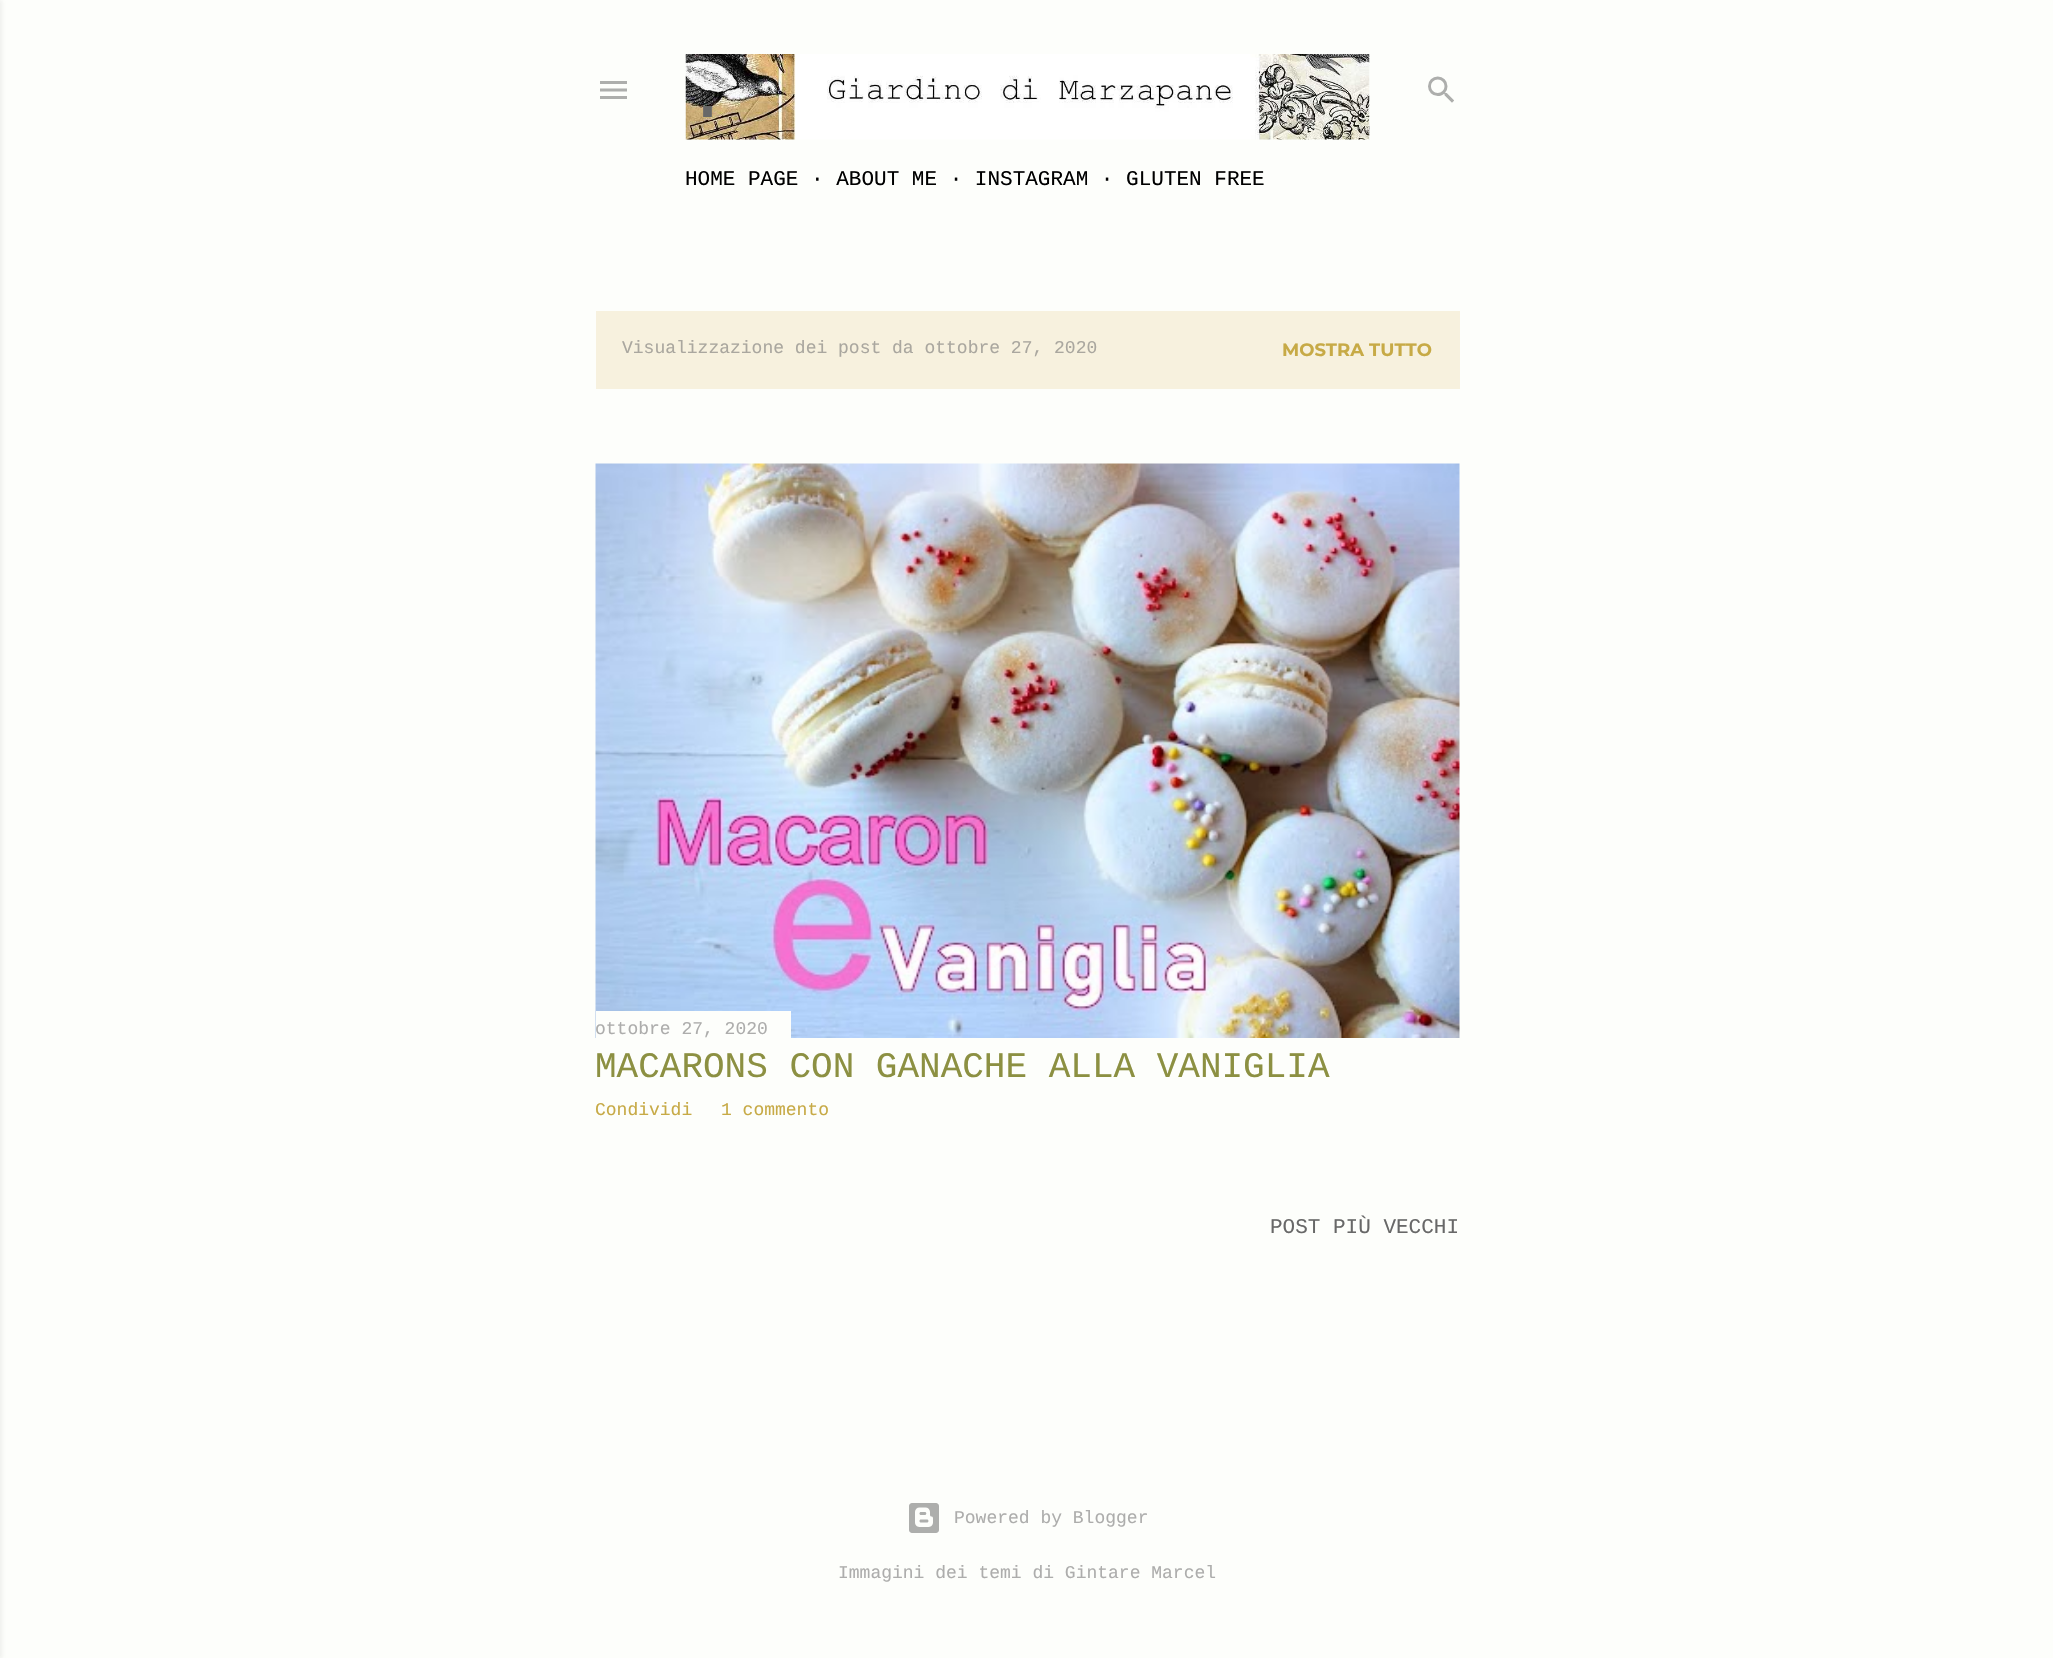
void draw(SkCanvas* c) {
SkPaint p;
p.setAntiAlias(true);
auto F=[&](const char* family, int weight, float size, bool italic = false){SkFontStyle style(weight, SkFontStyle::kNormal_Width,italic ? SkFontStyle::kItalic_Slant : SkFontStyle::kUpright_Slant);SkFont result(fontMgr->matchFamilyStyle(family, style), size);result.setSubpixel(true);return result;};
auto T=[&](const char* s, float x, float y, const SkFont& font){c->drawString(s, x, y, font, p);};
auto R=[&](float x, float y, float w, float h){c->drawRect(SkRect::MakeXYWH(x, y, w, h), p);};
auto I=[&](const char* path, float x, float y, float w, float h){auto image = SkImages::DeferredFromEncodedData(SkData::MakeFromFileName(path));c->drawImageRect(image, SkRect::MakeXYWH(x, y, w, h), SkSamplingOptions());};
c->clear(0xfffdfefb);
p.setColor(0x1a686868);
p.setMaskFilter(SkMaskFilter::MakeBlur(kNormal_SkBlurStyle, 2));
c->drawRect(SkRect::MakeXYWH(-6,0,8,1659),p);
p.setMaskFilter(nullptr);
I("1.png",600,81,27,18);
I("2.png",1428,76,26,27);
I("3.png",685,54,685,86);
auto f1 = F("Liberation Mono",400,75);
p.setColor(0xff686868);
T(".",685,117,f1);
auto f2 = F("Liberation Mono",400,21);
p.setColor(0xff000000);
T("HOME PAGE · ABOUT ME · INSTAGRAM · GLUTEN FREE",685,185,f2);
p.setColor(0xfff7f1de);
R(596,311,864,78);
auto f3 = F("Liberation Mono",400,18);
p.setColor(0xffaaa79f);
T("Visualizzazione dei post da ottobre 27, 2020",622,353,f3);
auto f4 = F("Montserrat",700,18);
p.setColor(0xffc7aa46);
T("MOSTRA TUTTO",1282,356,f4);
I("4.png",595,463,865,575);
p.setColor(0xfffdfefb);
R(596,1011,195,27);
p.setColor(0xffadadac);
T("ottobre 27, 2020",595,1034,f3);
auto f5 = F("Liberation Mono",400,36);
p.setColor(0xff8c9042);
T("MACARONS CON GANACHE ALLA VANIGLIA",595,1077,f5);
p.setColor(0xffc7aa46);
T("Condividi",595,1115,f3);
T("1 commento",721,1115,f3);
p.setColor(0xff686868);
T("POST PIÙ VECCHI",1270,1233,f2);
I("5.png",909,1503,30,30);
p.setColor(0xffadadac);
T("Powered by Blogger",954,1523,f3);
T("Immagini dei temi di Gintare Marcel",838,1578,f3);
}
